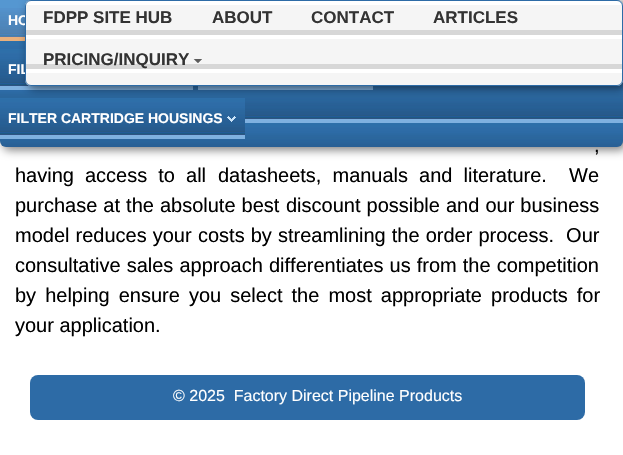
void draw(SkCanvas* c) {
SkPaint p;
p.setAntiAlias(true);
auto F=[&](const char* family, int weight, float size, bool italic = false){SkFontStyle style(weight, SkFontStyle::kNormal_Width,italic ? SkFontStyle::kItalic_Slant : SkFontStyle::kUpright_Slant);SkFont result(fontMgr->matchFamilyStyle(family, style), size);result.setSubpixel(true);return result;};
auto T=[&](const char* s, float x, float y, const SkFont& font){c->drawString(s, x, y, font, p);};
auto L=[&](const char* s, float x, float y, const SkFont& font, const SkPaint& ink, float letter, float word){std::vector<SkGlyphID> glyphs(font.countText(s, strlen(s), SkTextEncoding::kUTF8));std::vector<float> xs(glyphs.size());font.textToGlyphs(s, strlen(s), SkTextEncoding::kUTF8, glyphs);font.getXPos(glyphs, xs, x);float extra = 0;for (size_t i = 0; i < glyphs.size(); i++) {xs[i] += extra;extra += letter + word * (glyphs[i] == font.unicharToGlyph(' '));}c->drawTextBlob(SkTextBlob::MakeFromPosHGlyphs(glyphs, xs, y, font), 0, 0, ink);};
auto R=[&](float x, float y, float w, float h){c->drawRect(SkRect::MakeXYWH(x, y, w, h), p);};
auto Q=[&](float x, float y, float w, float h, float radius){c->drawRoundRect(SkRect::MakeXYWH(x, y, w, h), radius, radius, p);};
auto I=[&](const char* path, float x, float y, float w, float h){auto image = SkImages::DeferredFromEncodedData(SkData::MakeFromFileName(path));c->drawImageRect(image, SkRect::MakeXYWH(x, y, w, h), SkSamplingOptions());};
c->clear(0xffffffff);
p.setColor(0x80000000);
p.setMaskFilter(SkMaskFilter::MakeBlur(kNormal_SkBlurStyle, 5));
c->drawRoundRect(SkRect::MakeXYWH(3,3,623,147),6,6,p);
p.setMaskFilter(nullptr);
I("3.png",0,0,623,147);
p.setColor(0xff5597d1);
R(0,0,31,8);
I("4.png",0,8,25,33);
I("5.png",0,49,193,41);
I("6.png",198,86,175,4);
I("7.png",0,98,245,41);
p.setColor(0x80000000);
p.setMaskFilter(SkMaskFilter::MakeBlur(kNormal_SkBlurStyle, 5));
c->drawRoundRect(SkRect::MakeXYWH(28,3,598,86),6,6,p);
p.setMaskFilter(nullptr);
auto f1 = F("Liberation Sans",700,14);
p.setColor(0xffffffff);
T("HO",8,25,f1);
T("FIL",8,74,f1);
I("1.png",25,0,598,86);
p.setStroke(true);
p.setStrokeWidth(1);
p.setColor(0xff2d6ba6);
c->drawRoundRect(SkRect::MakeXYWH(25.5,.5,597,85),5.5,5.5,p);
auto f2 = F("Liberation Sans",700,17);
p.setStroke(false);
p.setColor(0xff333333);
T("FDPP SITE HUB",43,23,f2);
T("ABOUT",212,23,f2);
T("CONTACT",311,23,f2);
T("ARTICLES",433,23,f2);
I("2.png",193,59,9,4);
T("PRICING/INQUIRY",43,65,f2);
p.setColor(0xffffffff);
T("FILTER CARTRIDGE HOUSINGS",8,123,f1);
auto f3 = F("Liberation Sans",400,20);
p.setColor(0xff000000);
L(",",594,152,f3,p,0,4);
L("having access to all",15,182,f3,p,0,5.5);
L("datasheets, manuals and literature.  We",218,182,f3,p,0,5.5);
L("purchase at the absolute best",15,212,f3,p,0,.5);
L("discount possible and our business",286,212,f3,p,0,.5);
L("model reduces your",15,242,f3,p,0,.5);
L("costs by streamlining the order process.  Our",198,242,f3,p,0,.5);
L("consultative sales approach",15,272,f3,p,0,.5);
L("differentiates us from the competition",269,272,f3,p,0,.5);
L("by helping ensure you select the most appropriate products for",15,302,f3,p,0,3.5);
T("your application.",15,332,f3);
p.setColor(0xff2d6ba6);
Q(30,375,555,45,8);
auto f4 = F("Liberation Sans",400,16);
p.setColor(0xffffffff);
T("© 2025  Factory Direct Pipeline Products",173,401,f4);
}
